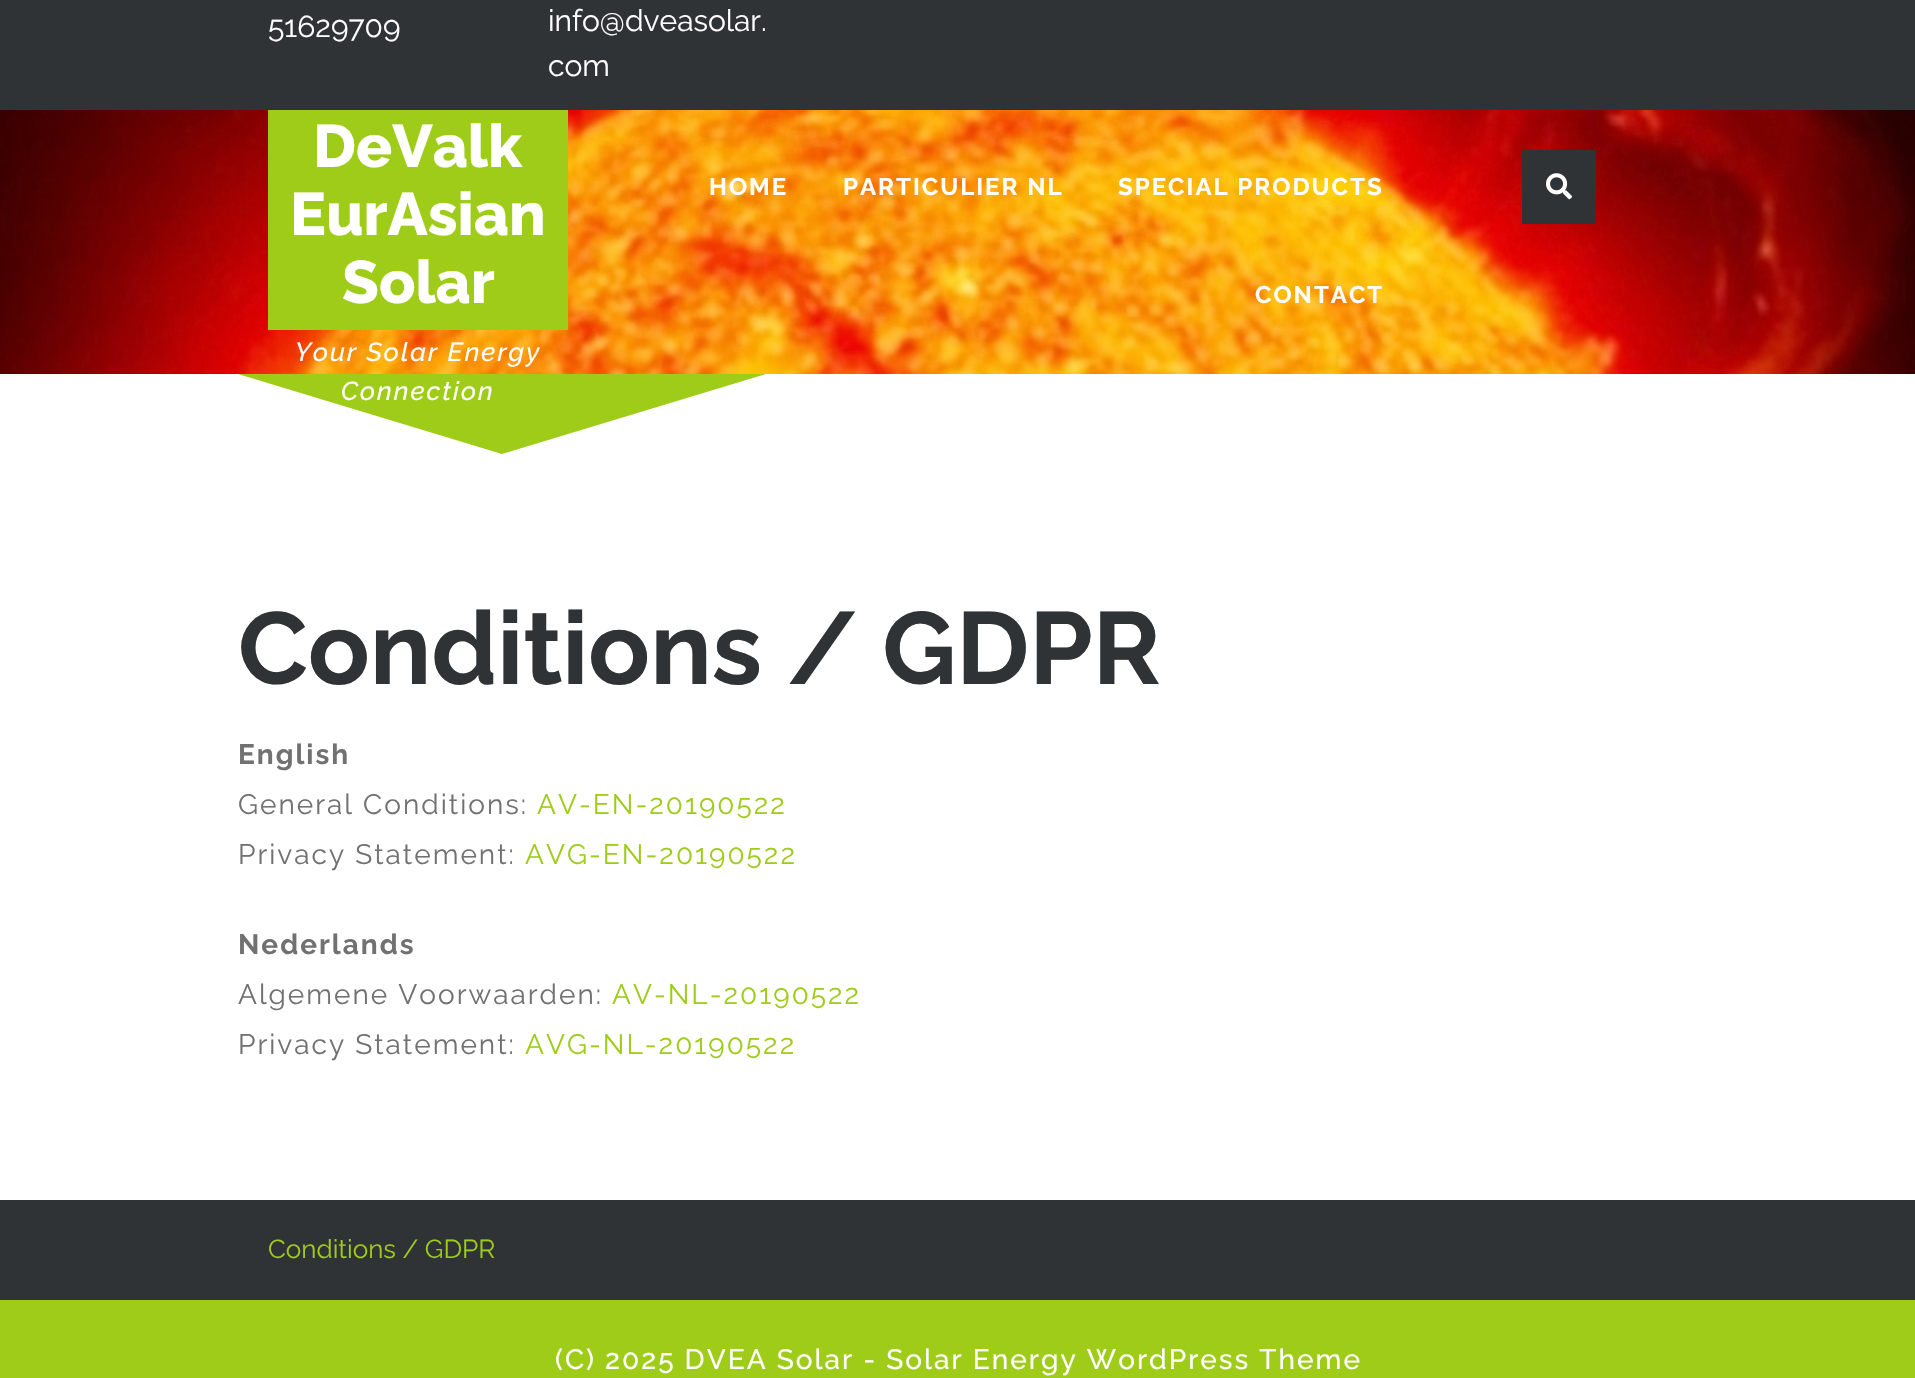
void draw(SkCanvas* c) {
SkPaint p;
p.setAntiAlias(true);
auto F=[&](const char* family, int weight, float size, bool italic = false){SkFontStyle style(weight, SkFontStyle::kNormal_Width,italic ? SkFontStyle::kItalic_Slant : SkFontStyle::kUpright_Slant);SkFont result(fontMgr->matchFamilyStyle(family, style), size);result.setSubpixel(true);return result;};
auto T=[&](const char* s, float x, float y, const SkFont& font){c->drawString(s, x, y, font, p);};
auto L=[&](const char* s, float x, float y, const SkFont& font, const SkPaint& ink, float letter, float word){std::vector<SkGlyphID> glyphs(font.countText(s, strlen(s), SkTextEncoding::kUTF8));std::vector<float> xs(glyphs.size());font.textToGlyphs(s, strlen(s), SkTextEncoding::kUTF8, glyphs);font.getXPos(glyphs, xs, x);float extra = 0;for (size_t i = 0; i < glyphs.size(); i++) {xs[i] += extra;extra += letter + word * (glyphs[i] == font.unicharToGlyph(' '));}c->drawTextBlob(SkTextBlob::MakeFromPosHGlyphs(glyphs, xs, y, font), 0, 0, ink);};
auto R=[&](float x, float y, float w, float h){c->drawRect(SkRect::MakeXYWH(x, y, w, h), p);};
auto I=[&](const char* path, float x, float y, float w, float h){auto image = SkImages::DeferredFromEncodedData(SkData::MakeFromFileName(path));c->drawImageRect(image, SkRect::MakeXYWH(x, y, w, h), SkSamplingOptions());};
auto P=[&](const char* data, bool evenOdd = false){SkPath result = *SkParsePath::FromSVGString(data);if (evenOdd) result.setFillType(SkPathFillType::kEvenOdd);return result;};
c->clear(0xffffffff);
I("1.png",0,110,1915,264);
p.setColor(0xff303336);
R(0,0,1915,110);
auto f1 = F("Raleway",400,30);
p.setColor(0xffffffff);
T("51629709",268,37,f1);
T("info@dveasolar.",548,31,f1);
T("com",548,76,f1);
p.setColor(0xff9ecc19);
R(268,110,300,220);
auto f2 = F("Raleway",800,60);
p.setColor(0xffffffff);
T("DeValk",313,167,f2);
T("EurAsian",290,235,f2);
T("Solar",342,303,f2);
auto f3 = F("Raleway",500,26,true);
L("Your Solar Energy",295,361,f3,p,2,0);
p.setColor(0xff9ecc19);
c->drawPath(P("M238 374h528l-264 80z"),p);
p.setColor(0xffffffff);
L("Connection",341,400,f3,p,2,0);
auto f4 = F("Raleway",700,24);
L("HOME",709,195,f4,p,2,0);
L("PARTICULIER NL",843,195,f4,p,2,0);
L("SPECIAL PRODUCTS",1118,195,f4,p,2,0);
L("CONTACT",1255,303,f4,p,2,0);
p.setColor(0xff303336);
R(1522,150,74,74);
I("2.png",1546,173,26,27);
auto f5 = F("Raleway",700,102);
T("Conditions / GDPR",238,684,f5);
auto f6 = F("Raleway",700,28);
p.setColor(0xff717171);
L("English",238,764,f6,p,2,0);
auto f7 = F("Raleway",400,28);
L("General Conditions:",238,814,f7,p,2,0);
p.setColor(0xff9ecc19);
L("AV-EN-20190522",537,814,f7,p,2,0);
p.setColor(0xff717171);
L("Privacy Statement:",238,864,f7,p,2,0);
p.setColor(0xff9ecc19);
L("AVG-EN-20190522",525,864,f7,p,2,0);
p.setColor(0xff717171);
L("Nederlands",238,954,f6,p,2,0);
L("Algemene Voorwaarden:",238,1004,f7,p,2,0);
p.setColor(0xff9ecc19);
L("AV-NL-20190522",612,1004,f7,p,2,0);
p.setColor(0xff717171);
L("Privacy Statement:",238,1054,f7,p,2,0);
p.setColor(0xff9ecc19);
L("AVG-NL-20190522",525,1054,f7,p,2,0);
p.setColor(0xff303336);
R(0,1200,1915,100);
auto f8 = F("Raleway",400,26);
p.setColor(0xff9ecc19);
T("Conditions / GDPR",268,1258,f8);
R(0,1300,1915,78);
auto f9 = F("Raleway",500,28);
p.setColor(0xffffffff);
L("(C) 2025 DVEA Solar - Solar Energy WordPress Theme",555,1369,f9,p,2,0);
}
